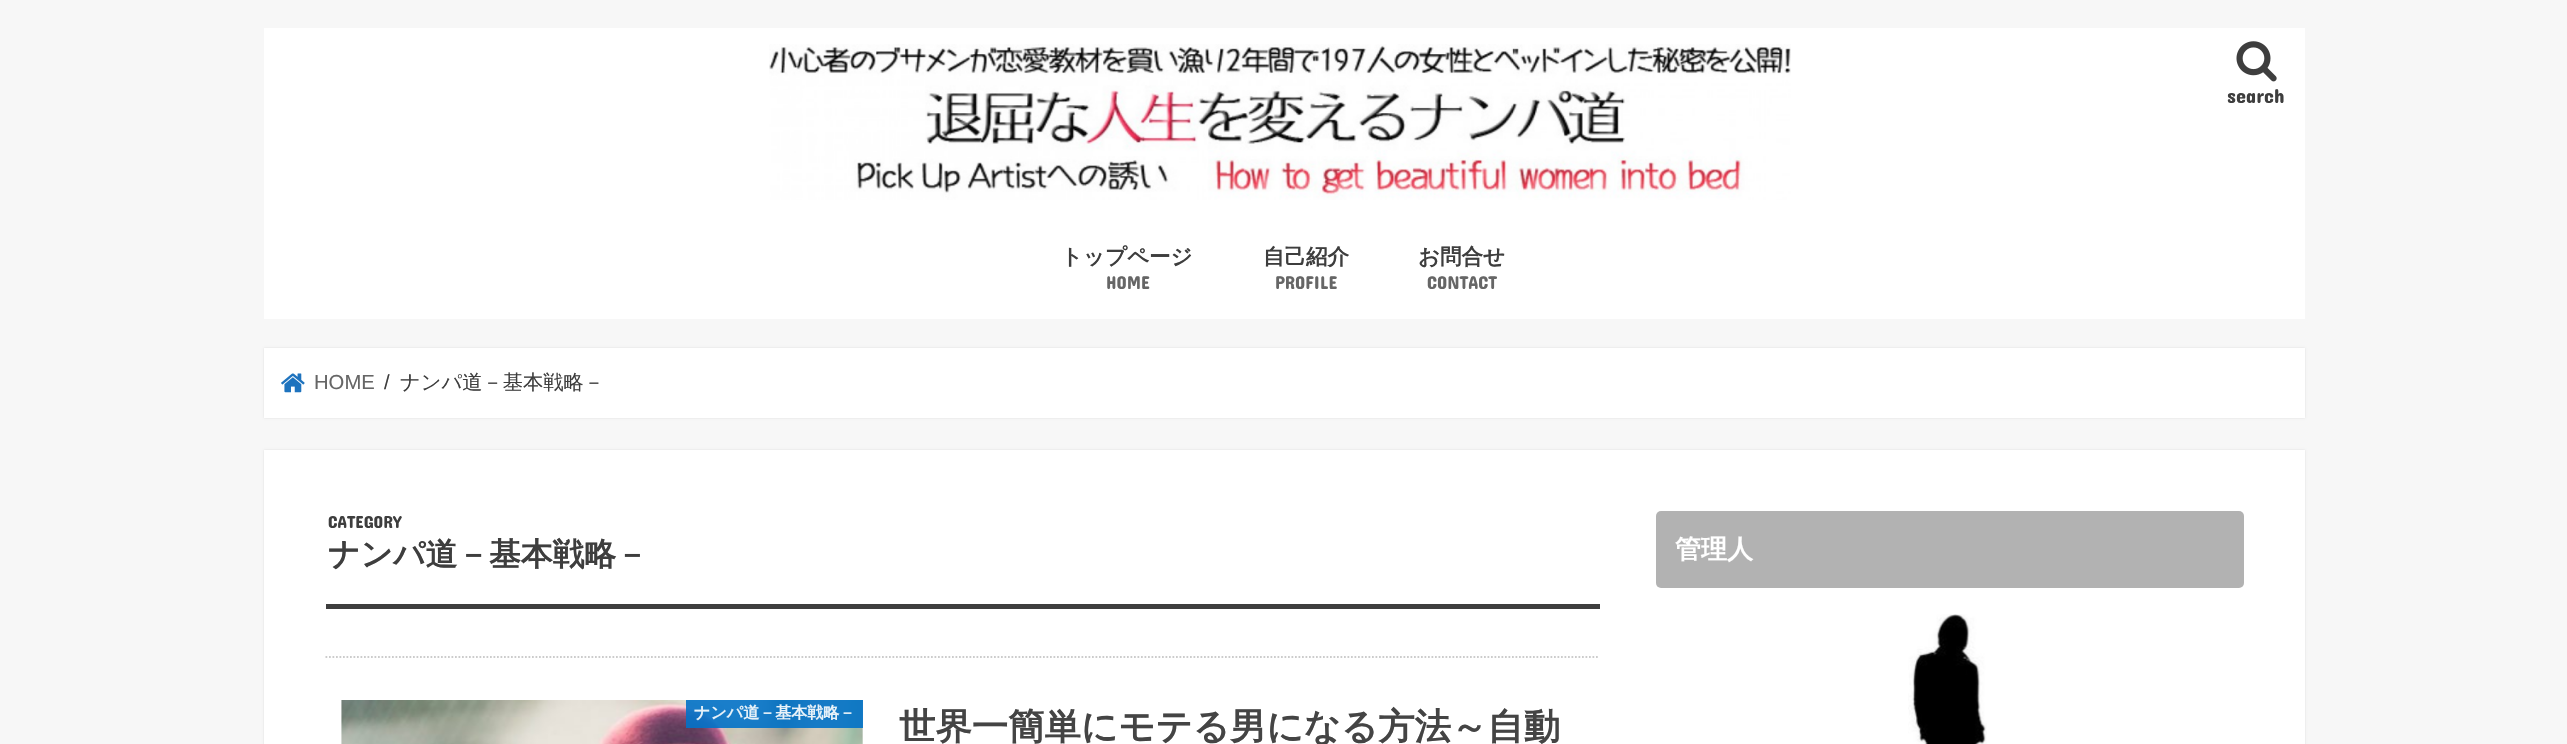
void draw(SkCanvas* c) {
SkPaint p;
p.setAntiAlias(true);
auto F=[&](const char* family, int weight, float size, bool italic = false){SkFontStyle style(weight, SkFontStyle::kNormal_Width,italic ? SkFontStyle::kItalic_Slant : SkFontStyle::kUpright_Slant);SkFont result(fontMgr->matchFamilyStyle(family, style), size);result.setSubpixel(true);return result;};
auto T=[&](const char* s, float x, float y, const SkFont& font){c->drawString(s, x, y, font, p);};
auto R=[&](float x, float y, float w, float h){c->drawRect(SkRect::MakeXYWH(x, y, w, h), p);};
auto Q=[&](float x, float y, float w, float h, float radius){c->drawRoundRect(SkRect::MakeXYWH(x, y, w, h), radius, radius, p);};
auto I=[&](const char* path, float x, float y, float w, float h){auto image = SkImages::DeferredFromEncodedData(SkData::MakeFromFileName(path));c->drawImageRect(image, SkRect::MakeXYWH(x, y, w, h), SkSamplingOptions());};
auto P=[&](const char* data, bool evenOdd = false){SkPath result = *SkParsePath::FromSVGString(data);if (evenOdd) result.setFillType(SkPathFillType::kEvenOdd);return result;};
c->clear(0xfff7f7f7);
p.setColor(0xffffffff);
R(264,28,2041,291);
I("1.png",769,44,1022,156);
I("2.png",2236,41,41,41);
auto f1 = F("Concert One",400,20.25);
p.setColor(0xff3e3e3e);
T("search",2227,103,f1);
auto f2 = F("WenQuanYi Zen Hei",700,21.5);
T("トップページ",1061,264,f2);
auto f3 = F("Concert One",400,18.5);
p.setColor(0xff666666);
T("HOME",1106,289,f3);
p.setColor(0xff3e3e3e);
T("自己紹介",1263,264,f2);
p.setColor(0xff666666);
T("PROFILE",1275,289,f3);
p.setColor(0xff3e3e3e);
T("お問合せ",1418,264,f2);
p.setColor(0xff666666);
T("CONTACT",1427,289,f3);
p.setColor(0xffdddddd);
p.setMaskFilter(SkMaskFilter::MakeBlur(kNormal_SkBlurStyle, 1));
c->drawRect(SkRect::MakeXYWH(264,348,2041,70),p);
p.setMaskFilter(nullptr);
p.setColor(0xffffffff);
R(264,348,2041,70);
I("3.png",281,373,24,20);
auto f4 = F("Liberation Sans",400,20.25);
p.setColor(0xff666666);
T("HOME",314,389,f4);
p.setColor(0xff3e3e3e);
T("/",384,389,f4);
auto f5 = F("WenQuanYi Zen Hei",500,20.25);
T("ナンパ道－基本戦略－",400,389,f5);
p.setColor(0xffdddddd);
p.setMaskFilter(SkMaskFilter::MakeBlur(kNormal_SkBlurStyle, 1));
c->drawRect(SkRect::MakeXYWH(264,450,2041,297),p);
p.setMaskFilter(nullptr);
p.setColor(0xffffffff);
R(264,450,2041,294);
p.setColor(0xff3e3e3e);
R(326,604,1274,5);
auto f6 = F("Concert One",400,17.5);
T("CATEGORY",328,528,f6);
auto f7 = F("WenQuanYi Zen Hei",700,31.75);
T("ナンパ道－基本戦略－",328,565,f7);
p.setStroke(true);
p.setStrokeWidth(1.8);
p.setColor(0xffcccccc);
p.setPathEffect(SkDashPathEffect::Make({{1.75f,1.75f}}, 0));
c->drawPath(P("M325.5 657h1274"),p);
p.setPathEffect(nullptr);
I("4.png",341,700,522,44);
p.setStroke(false);
p.setColor(0xe60171c6);
R(686,700,177,28);
auto f8 = F("WenQuanYi Zen Hei",700,16);
p.setColor(0xffe8f2f9);
T("ナンパ道－基本戦略－",694,718,f8);
auto f9 = F("WenQuanYi Zen Hei",700,36.4);
p.setColor(0xff444444);
T("世界一簡単にモテる男になる方法～自動",899,739,f9);
p.setColor(0xffb2b2b2);
Q(1656,511,588,77,5);
auto f10 = F("WenQuanYi Zen Hei",700,26);
p.setColor(0xffffffff);
T("管理人",1675,558,f10);
I("5.png",1908,614,79,130);
}
